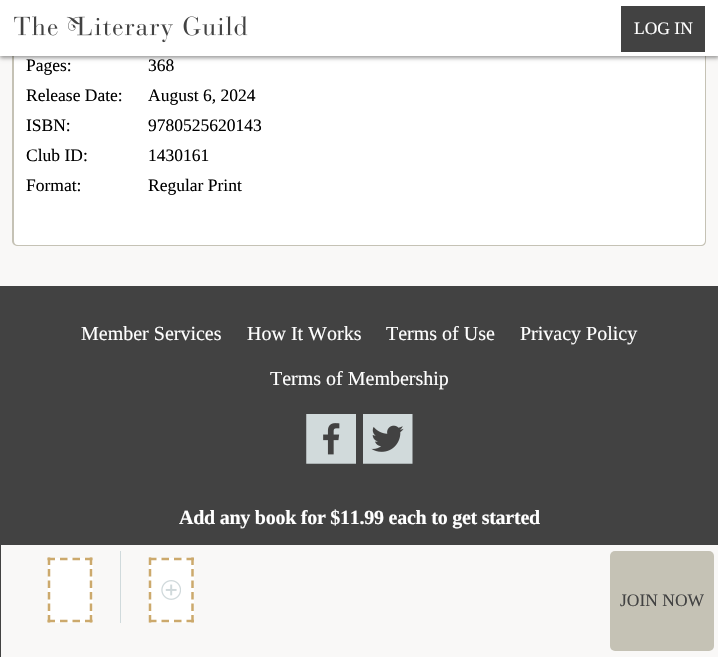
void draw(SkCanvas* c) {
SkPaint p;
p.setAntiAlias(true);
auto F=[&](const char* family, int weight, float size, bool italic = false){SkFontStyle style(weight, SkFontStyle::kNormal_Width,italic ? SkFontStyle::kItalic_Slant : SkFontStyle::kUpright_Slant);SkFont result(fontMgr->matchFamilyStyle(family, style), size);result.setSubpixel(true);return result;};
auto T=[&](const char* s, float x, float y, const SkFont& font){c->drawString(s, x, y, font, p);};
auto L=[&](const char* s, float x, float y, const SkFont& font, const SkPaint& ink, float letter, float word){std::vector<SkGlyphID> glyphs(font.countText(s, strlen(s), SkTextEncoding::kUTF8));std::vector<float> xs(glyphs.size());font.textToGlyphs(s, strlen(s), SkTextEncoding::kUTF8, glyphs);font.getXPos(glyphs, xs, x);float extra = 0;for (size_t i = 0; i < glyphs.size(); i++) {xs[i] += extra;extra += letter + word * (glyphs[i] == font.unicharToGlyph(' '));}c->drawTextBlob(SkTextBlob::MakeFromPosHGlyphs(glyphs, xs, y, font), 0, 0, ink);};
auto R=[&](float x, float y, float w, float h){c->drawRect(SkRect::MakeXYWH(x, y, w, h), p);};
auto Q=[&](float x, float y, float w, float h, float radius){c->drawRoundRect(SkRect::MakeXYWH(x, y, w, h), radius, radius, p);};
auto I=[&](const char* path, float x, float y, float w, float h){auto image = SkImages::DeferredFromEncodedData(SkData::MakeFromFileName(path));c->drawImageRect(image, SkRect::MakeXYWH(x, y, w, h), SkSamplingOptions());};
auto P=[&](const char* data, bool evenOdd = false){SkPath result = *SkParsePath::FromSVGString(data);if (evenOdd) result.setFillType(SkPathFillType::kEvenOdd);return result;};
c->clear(0xfff9f8f7);
p.setColor(0xffffffff);
c->drawPath(P("M13-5h693v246c0 3-2 5-5 5h-683c-3 0-5-2-5-5z"),p);
p.setColor(0xffc5c2b5);
c->drawPath(P("M12-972h694v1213c0 3-2 5-5 5h-683c-3 0-6-2-6-5zm2 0h691v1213c0 2-2 4-4 4h-683c-3 0-4-2-4-4z",true),p);
auto f1 = F("Liberation Serif",400,17.5);
p.setColor(0xff000000);
T("Pages:",26,71,f1);
T("368",148,71,f1);
T("Release Date:",26,101,f1);
T("August 6, 2024",148,101,f1);
T("ISBN:",26,131,f1);
T("9780525620143",148,131,f1);
T("Club ID:",26,161,f1);
T("1430161",148,161,f1);
T("Format:",26,191,f1);
T("Regular Print",148,191,f1);
p.setColor(0x66000000);
p.setMaskFilter(SkMaskFilter::MakeBlur(kNormal_SkBlurStyle, 2));
c->drawRect(SkRect::MakeXYWH(0,1,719,57),p);
p.setMaskFilter(nullptr);
p.setColor(0xffffffff);
R(0,0,718,56);
I("1.png",14,16,234,27);
p.setColor(0xff424242);
R(621,6,84,46);
p.setColor(0xffffffff);
T("LOG IN",634,34,f1);
p.setColor(0xff424242);
R(0,286,718,371);
auto f2 = F("Liberation Serif",700,20);
p.setColor(0xffffffff);
L("Add any book for $11.99 each to get started",179,524,f2,p,-.25,0);
p.setColor(0xfff9f8f7);
R(1,545,717,112);
p.setColor(0xffd0dadc);
R(120,551,1,72);
p.setColor(0xffffffff);
R(48,558,45,65);
p.setStroke(true);
p.setStrokeWidth(2.5);
p.setColor(0xffcca96c);
p.setPathEffect(SkDashPathEffect::Make({{7.5f,5}}, 0));
c->drawPath(P("M47.5 559h45"),p);
p.setPathEffect(nullptr);
p.setPathEffect(SkDashPathEffect::Make({{7.5f,4}}, 0));
c->drawPath(P("M91 557.5v65"),p);
p.setPathEffect(nullptr);
p.setPathEffect(SkDashPathEffect::Make({{7.5f,5}}, 0));
c->drawPath(P("M47.5 621h45"),p);
p.setPathEffect(nullptr);
p.setPathEffect(SkDashPathEffect::Make({{7.5f,4}}, 0));
c->drawPath(P("M49 557.5v65"),p);
p.setPathEffect(nullptr);
p.setStroke(false);
p.setColor(0xffffffff);
R(149,558,45,65);
I("2.png",161,580,20,20);
p.setStroke(true);
p.setColor(0xffcca96c);
p.setPathEffect(SkDashPathEffect::Make({{7.5f,5}}, 0));
c->drawPath(P("M149 559h45"),p);
p.setPathEffect(nullptr);
p.setPathEffect(SkDashPathEffect::Make({{7.5f,4}}, 0));
c->drawPath(P("M192.5 557.5v65"),p);
p.setPathEffect(nullptr);
p.setPathEffect(SkDashPathEffect::Make({{7.5f,5}}, 0));
c->drawPath(P("M149 621h45"),p);
p.setPathEffect(nullptr);
p.setPathEffect(SkDashPathEffect::Make({{7.5f,4}}, 0));
c->drawPath(P("M150 557.5v65"),p);
p.setPathEffect(nullptr);
p.setStroke(false);
p.setColor(0xffc5c2b5);
Q(610,551,104,100,5);
p.setColor(0xff424242);
T("JOIN NOW",620,606,f1);
auto f3 = F("Liberation Serif",400,20);
p.setColor(0xffffffff);
T("Member Services",81,340,f3);
T("How It Works",247,340,f3);
T("Terms of Use",386,340,f3);
T("Privacy Policy",520,340,f3);
T("Terms of Membership",270,385,f3);
I("3.png",306,414,50,50);
I("4.png",363,414,50,50);
}
